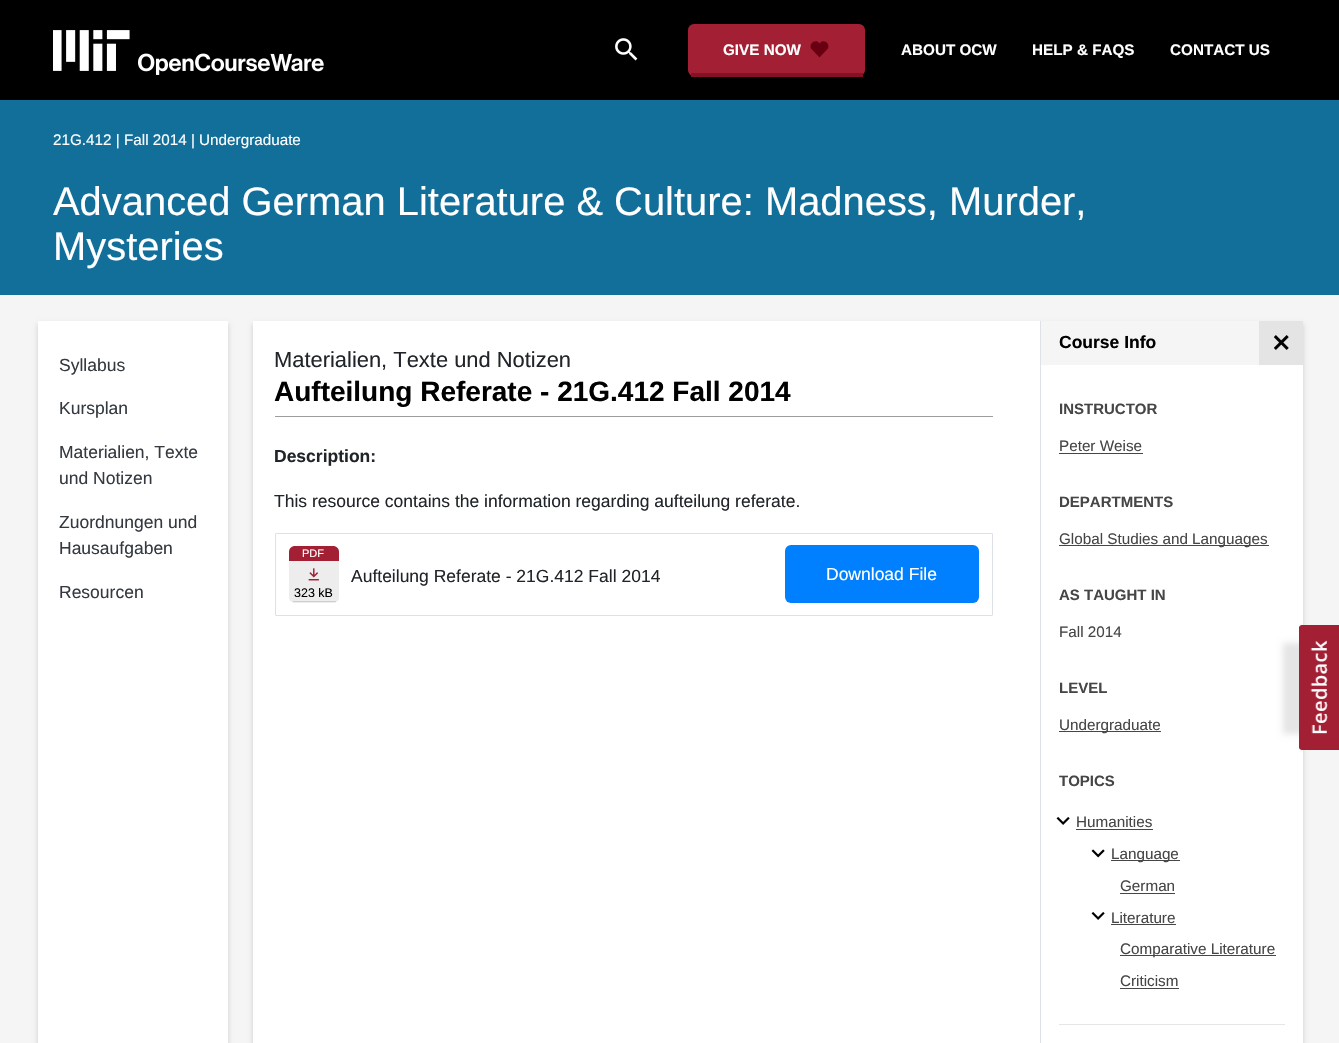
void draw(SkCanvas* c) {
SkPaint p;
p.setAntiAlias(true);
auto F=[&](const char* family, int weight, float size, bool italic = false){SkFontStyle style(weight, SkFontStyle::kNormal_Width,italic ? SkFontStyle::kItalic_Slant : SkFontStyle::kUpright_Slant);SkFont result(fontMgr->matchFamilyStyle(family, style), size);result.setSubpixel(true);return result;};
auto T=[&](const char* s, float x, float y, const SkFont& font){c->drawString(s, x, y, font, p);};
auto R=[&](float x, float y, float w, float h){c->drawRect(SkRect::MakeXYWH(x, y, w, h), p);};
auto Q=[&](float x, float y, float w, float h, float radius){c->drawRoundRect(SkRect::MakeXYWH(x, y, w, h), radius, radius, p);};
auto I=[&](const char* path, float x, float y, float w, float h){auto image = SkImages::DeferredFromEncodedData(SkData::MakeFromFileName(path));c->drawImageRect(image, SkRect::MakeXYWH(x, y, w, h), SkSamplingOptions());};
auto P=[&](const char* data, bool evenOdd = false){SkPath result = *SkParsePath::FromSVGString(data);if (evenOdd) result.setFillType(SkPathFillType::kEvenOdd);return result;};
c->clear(0xfff5f5f5);
p.setColor(0xff000000);
R(0,0,1339,100);
I("1.png",53,30,271,45);
I("2.png",615,38,23,23);
p.setColor(0xffa31f34);
Q(688,24,177,52,6);
p.setColor(0xff851124);
R(691,73,172,4);
auto f1 = F("Liberation Sans",700,15.25);
p.setColor(0xffffffff);
T("GIVE NOW",723,55,f1);
p.setColor(0xff690011);
c->drawPath(P("M819.5 57.5l-8.5-9c-2.5-5.5 5.5-10 8.5-5c3.5-5 11-.5 8.5 5z"),p);
p.setColor(0xffffffff);
T("ABOUT OCW",901,55,f1);
T("HELP & FAQS",1032,55,f1);
T("CONTACT US",1170,55,f1);
p.setColor(0xff126f9a);
R(0,100,1339,195);
auto f2 = F("Liberation Sans",400,15.25);
p.setColor(0xffffffff);
T("21G.412 | Fall 2014 | Undergraduate",53,145,f2);
auto f3 = F("Liberation Sans",400,39.9);
T("Advanced German Literature & Culture: Madness, Murder,",53,215,f3);
T("Mysteries",53,260,f3);
p.setColor(0x29000000);
p.setMaskFilter(SkMaskFilter::MakeBlur(kNormal_SkBlurStyle, 2.5));
c->drawRect(SkRect::MakeXYWH(38,324,190,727),p);
p.setMaskFilter(nullptr);
p.setColor(0xffffffff);
R(38,321,190,722);
auto f4 = F("Liberation Sans",400,17.5);
p.setColor(0xff343a40);
T("Syllabus",59,371,f4);
T("Kursplan",59,414,f4);
T("Materialien, Texte",59,458,f4);
T("und Notizen",59,484,f4);
T("Zuordnungen und",59,528,f4);
T("Hausaufgaben",59,554,f4);
T("Resourcen",59,598,f4);
p.setColor(0x29000000);
p.setMaskFilter(SkMaskFilter::MakeBlur(kNormal_SkBlurStyle, 2.5));
c->drawRect(SkRect::MakeXYWH(253,324,1050,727),p);
p.setMaskFilter(nullptr);
p.setColor(0xffffffff);
R(253,321,1050,722);
p.setColor(0xff9c9d9e);
R(275,416,718,1);
auto f5 = F("Liberation Sans",400,21.9);
p.setColor(0xff212529);
T("Materialien, Texte und Notizen",274,367,f5);
auto f6 = F("Liberation Sans",700,28);
p.setColor(0xff000000);
T("Aufteilung Referate - 21G.412 Fall 2014",274,401,f6);
auto f7 = F("Liberation Sans",700,17.5);
p.setColor(0xff212529);
T("Description:",274,462,f7);
T("This resource contains the information regarding aufteilung referate.",274,507,f4);
p.setStroke(true);
p.setStrokeWidth(1);
p.setColor(0xffdee2e6);
c->drawRoundRect(SkRect::MakeXYWH(275.5,533.5,717,82),.5,.5,p);
p.setStroke(false);
p.setColor(0xffa31f34);
c->drawPath(P("M295 546h38c3.5 0 6 2.5 6 6v9h-50v-9c0-3.5 2.5-6 6-6z"),p);
auto f8 = F("Liberation Sans",400,11);
p.setColor(0xffffffff);
T("PDF",302,557,f8);
p.setColor(0xffededed);
c->drawPath(P("M289 561h50v36c0 3.5-2.5 6-6 6h-38c-3.5 0-6-2.5-6-6z"),p);
p.setColor(0xffcfcfcf);
R(293,601,43,1);
I("3.png",308,568,11,13);
auto f9 = F("Liberation Sans",400,12.5);
p.setColor(0xff000000);
T("323 kB",294,597,f9);
p.setColor(0xff212529);
T("Aufteilung Referate - 21G.412 Fall 2014",351,582,f4);
p.setColor(0xff007fff);
Q(785,545,194,58,6);
p.setColor(0xffffffff);
T("Download File",826,580,f4);
p.setColor(0xffdee2e6);
R(1040,321,1,722);
p.setColor(0xfff5f5f5);
R(1041,321,218,44);
p.setColor(0xff000000);
T("Course Info",1059,348,f7);
auto f10 = F("Liberation Sans",700,15);
p.setColor(0xff464646);
T("INSTRUCTOR",1059,414,f10);
T("Peter Weise",1059,451,f2);
R(1059,453,84,1);
T("DEPARTMENTS",1059,507,f10);
R(1059,545,210,1);
T("Global Studies and Languages",1059,544,f2);
T("AS TAUGHT IN",1059,600,f10);
T("Fall 2014",1059,637,f2);
T("LEVEL",1059,693,f10);
R(1059,731,102,1);
T("Undergraduate",1059,730,f2);
T("TOPICS",1059,786,f10);
I("4.png",1056,817,14,8);
T("Humanities",1076,827,f2);
R(1076,829,77,1);
I("5.png",1091,849,14,9);
R(1111,860,69,1);
T("Language",1111,859,f2);
T("German",1120,891,f2);
R(1120,893,55,1);
I("4.png",1091,912,14,8);
T("Literature",1111,923,f2);
R(1111,924,65,1);
R(1120,955,156,1);
T("Comparative Literature",1120,954,f2);
T("Criticism",1120,986,f2);
R(1120,988,59,1);
p.setColor(0xffe6e6e6);
R(1059,1024,226,1);
p.setColor(0xffe4e4e4);
R(1259,321,44,44);
I("6.png",1274,335,15,15);
p.setColor(0x1a000000);
p.setMaskFilter(SkMaskFilter::MakeBlur(kNormal_SkBlurStyle, 3));
c->drawRoundRect(SkRect::MakeXYWH(1283,643,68,91),2.5,2.5,p);
p.setMaskFilter(nullptr);
I("7.png",1299,625,40,125);
}
